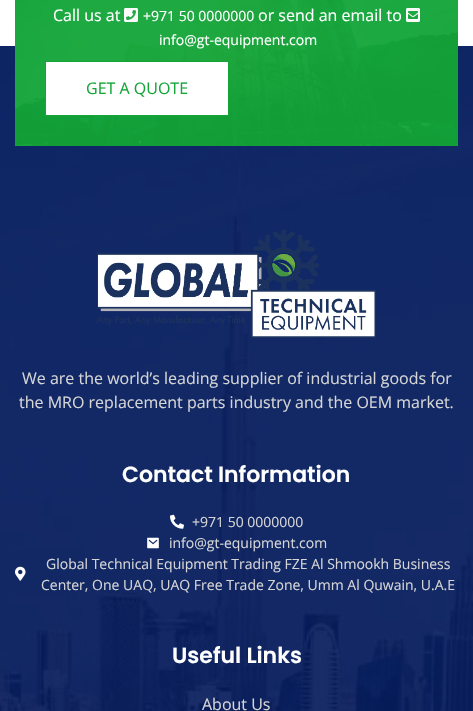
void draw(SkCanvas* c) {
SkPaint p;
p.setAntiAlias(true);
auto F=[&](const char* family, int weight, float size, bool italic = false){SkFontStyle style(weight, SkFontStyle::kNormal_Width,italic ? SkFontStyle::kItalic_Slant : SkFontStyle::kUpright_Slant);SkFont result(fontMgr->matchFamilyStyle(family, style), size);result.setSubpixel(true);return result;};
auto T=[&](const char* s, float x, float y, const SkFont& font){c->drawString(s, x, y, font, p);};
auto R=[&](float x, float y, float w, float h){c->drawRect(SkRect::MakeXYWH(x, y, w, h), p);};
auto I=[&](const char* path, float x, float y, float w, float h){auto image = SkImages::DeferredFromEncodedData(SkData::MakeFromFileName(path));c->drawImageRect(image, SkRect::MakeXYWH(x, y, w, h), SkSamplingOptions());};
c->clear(0xffffffff);
p.setColor(0xff001659);
R(0,46,473,665);
I("4.png",0,46,473,665);
I("1.png",15,0,443,146);
auto f1 = F("Open Sans",400,16);
p.setColor(0xffffffff);
T("Call us at",53,21,f1);
I("2.png",124,8,14,14);
auto f2 = F("Open Sans",400,14);
T("+971 50 0000000",143,21,f2);
T("or send an email to",258,21,f1);
I("3.png",406,8,14,14);
T("info@gt-equipment.com",159,45,f2);
c->drawRect(SkRect::MakeXYWH(45.5,61.5,183,54),p);
p.setStroke(true);
p.setStrokeWidth(1);
p.setColor(0xff13a538);
c->drawRect(SkRect::MakeXYWH(45.5,61.5,183,54),p);
p.setStroke(false);
T("GET A QUOTE",86,94,f1);
I("5.png",97,230,279,108);
p.setColor(0xffd5d5d5);
T("We are the world’s leading supplier of industrial goods for",22,384,f1);
T("the MRO replacement parts industry and the OEM market.",19,408,f1);
auto f3 = F("Poppins",600,22);
p.setColor(0xffffffff);
T("Contact Information",122,482,f3);
I("6.png",170,514,14,15);
p.setColor(0xffd5d5d5);
T("+971 50 0000000",192,527,f2);
I("7.png",147,537,12,12);
T("info@gt-equipment.com",169,548,f2);
I("8.png",15,566,11,15);
T("Global Technical Equipment Trading FZE Al Shmookh Business",46,569,f2);
T("Center, One UAQ, UAQ Free Trade Zone, Umm Al Quwain, U.A.E",41,590,f2);
p.setColor(0xffffffff);
T("Useful Links",172,663,f3);
p.setColor(0xffd5d5d5);
T("About Us",202,710,f1);
}
